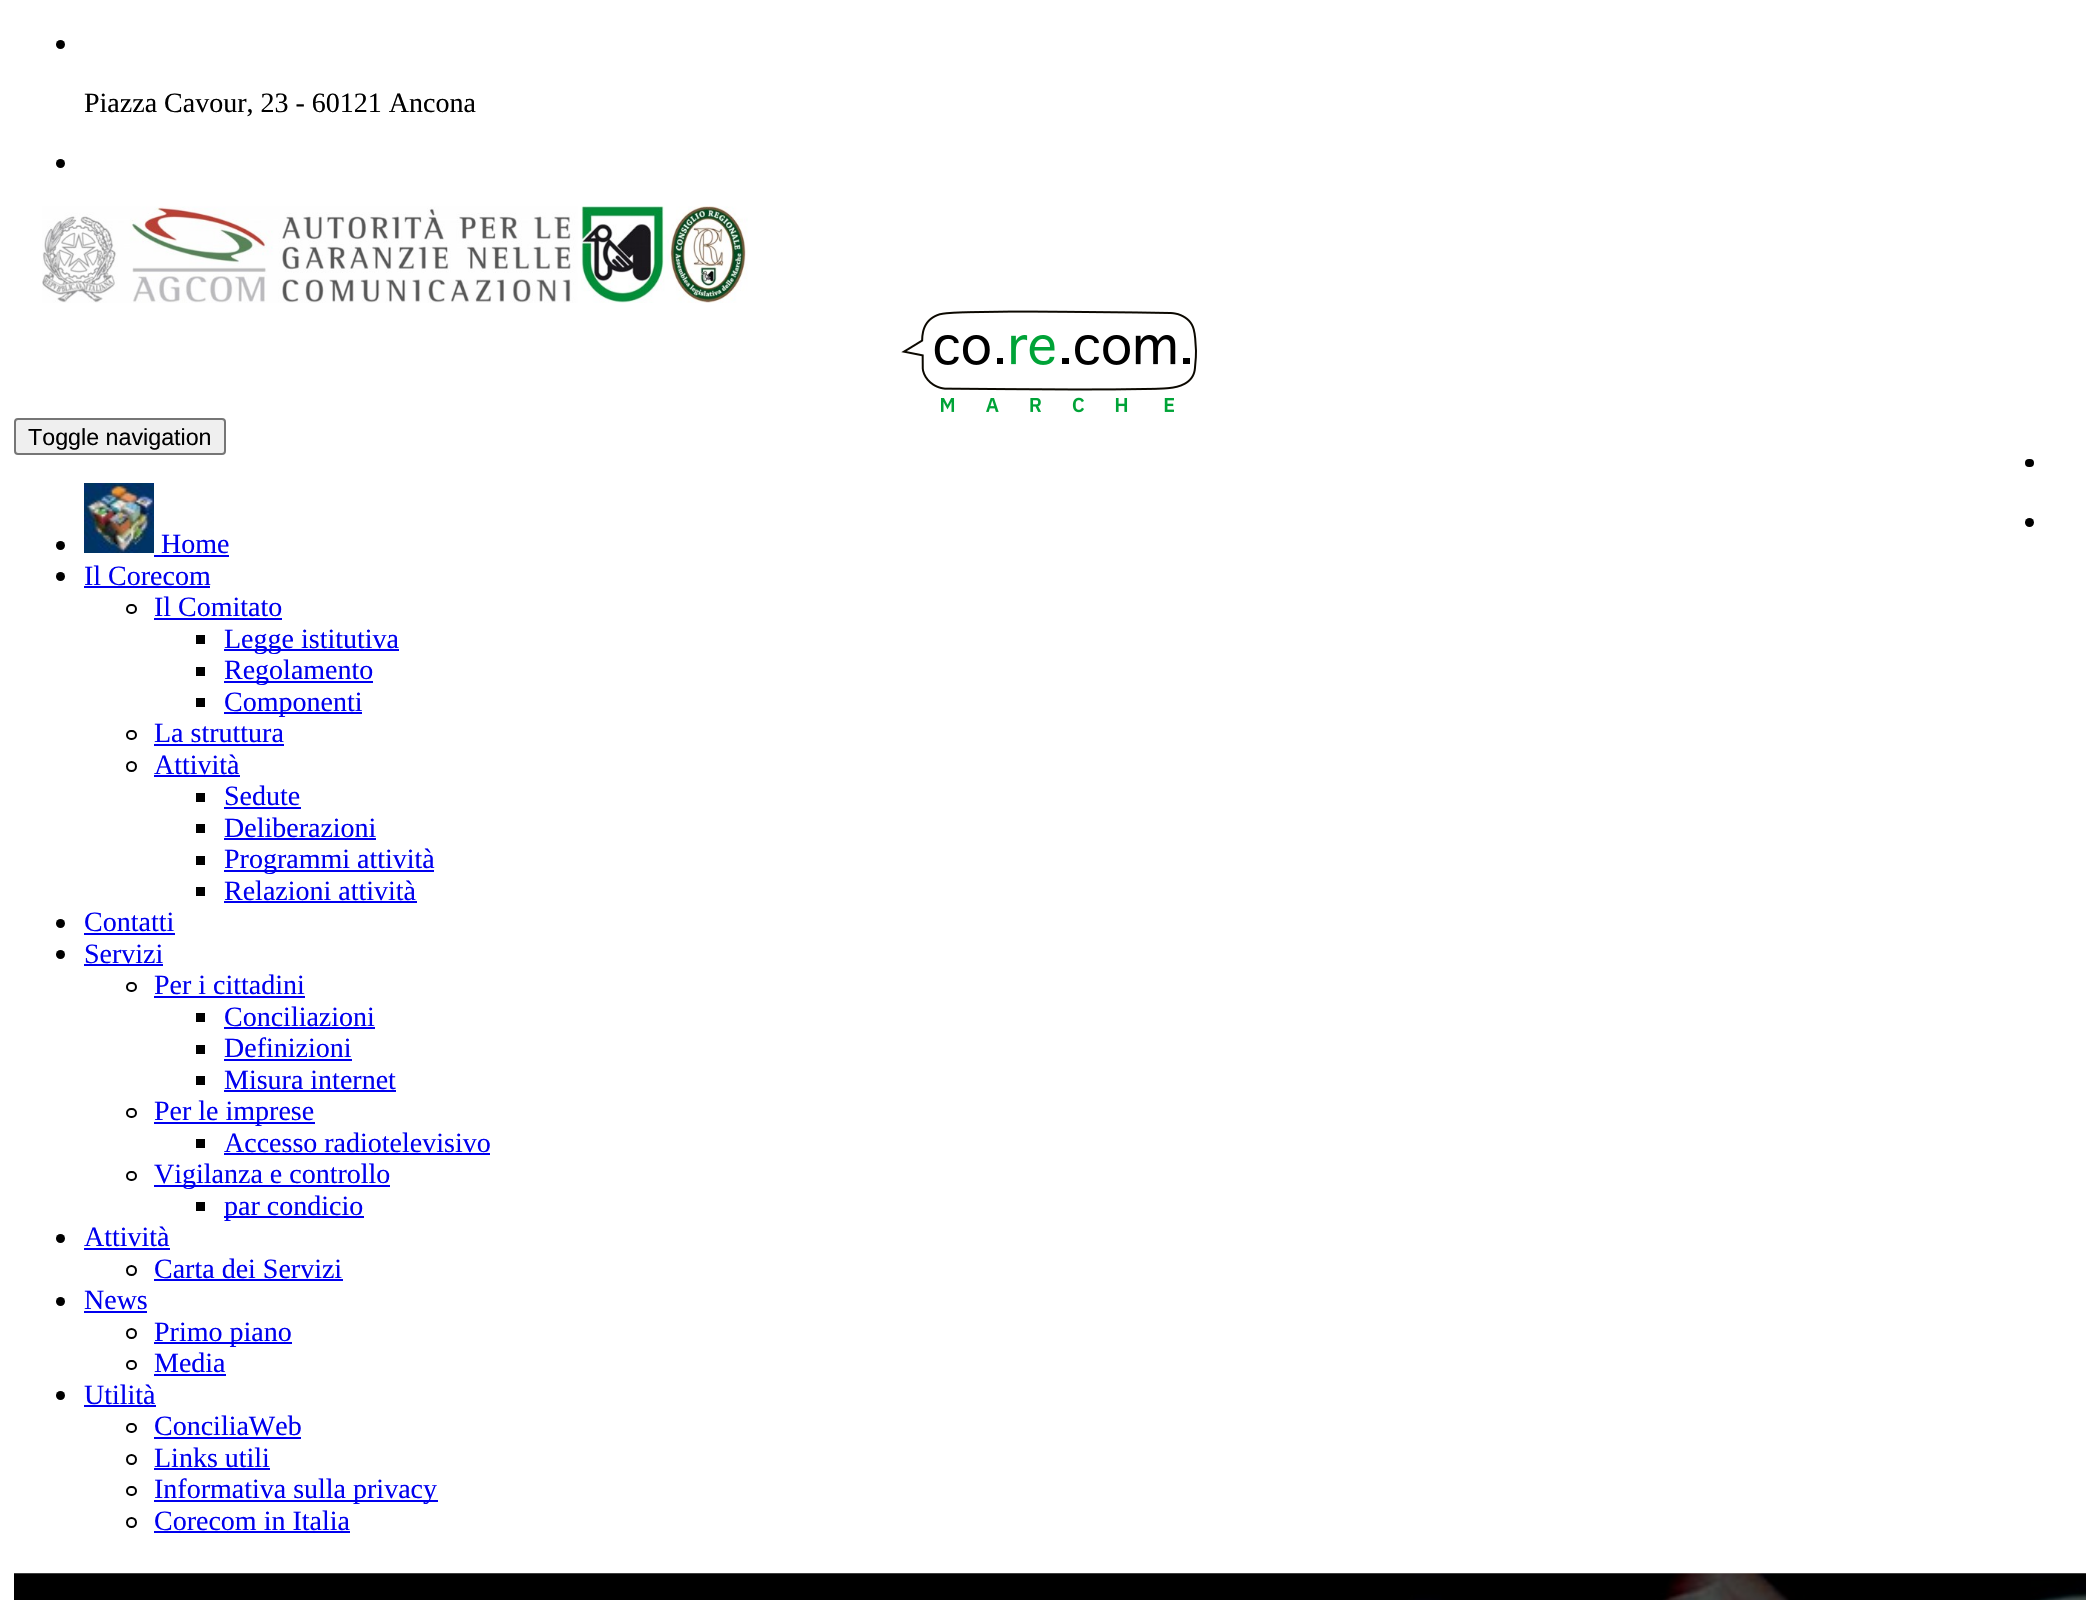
void draw(SkCanvas* c) {
SkPaint p;
p.setAntiAlias(true);
auto F=[&](const char* family, int weight, float size, bool italic = false){SkFontStyle style(weight, SkFontStyle::kNormal_Width,italic ? SkFontStyle::kItalic_Slant : SkFontStyle::kUpright_Slant);SkFont result(fontMgr->matchFamilyStyle(family, style), size);result.setSubpixel(true);return result;};
auto T=[&](const char* s, float x, float y, const SkFont& font){c->drawString(s, x, y, font, p);};
auto R=[&](float x, float y, float w, float h){c->drawRect(SkRect::MakeXYWH(x, y, w, h), p);};
auto Q=[&](float x, float y, float w, float h, float radius){c->drawRoundRect(SkRect::MakeXYWH(x, y, w, h), radius, radius, p);};
auto I=[&](const char* path, float x, float y, float w, float h){auto image = SkImages::DeferredFromEncodedData(SkData::MakeFromFileName(path));c->drawImageRect(image, SkRect::MakeXYWH(x, y, w, h), SkSamplingOptions());};
c->clear(0xffffffff);
p.setColor(0xff000000);
c->drawCircle(60.5,44.5,4.5,p);
auto f1 = F("Liberation Serif",400,28);
T("Piazza Cavour, 23 - 60121 Ancona",84,112,f1);
c->drawCircle(60.5,163.5,4.5,p);
I("1.png",42,206,706,97);
I("2.png",901,310,296,103);
Q(2025,459,9,8,4);
c->drawCircle(2029.5,522.5,4.5,p);
p.setColor(0xffefefef);
c->drawRoundRect(SkRect::MakeXYWH(15,419,210,35),3,3,p);
p.setStroke(true);
p.setStrokeWidth(2);
p.setColor(0xff767676);
c->drawRoundRect(SkRect::MakeXYWH(15,419,210,35),3,3,p);
auto f2 = F("Liberation Sans",400,23.25);
p.setStroke(false);
p.setColor(0xff000000);
T("Toggle navigation",28,445,f2);
c->drawCircle(60.5,545.5,4.5,p);
I("3.png",84,483,70,70);
p.setColor(0xff0000ee);
T("Home",161,553,f1);
R(154,555,75,2);
p.setColor(0xff000000);
c->drawCircle(60.5,576.5,4.5,p);
p.setColor(0xff0000ee);
T("Il Corecom",84,585,f1);
R(84,586,126,2);
p.setStroke(true);
p.setColor(0xff000000);
c->drawRoundRect(SkRect::MakeXYWH(127,605,9,8),4,4,p);
p.setStroke(false);
p.setColor(0xff0000ee);
T("Il Comitato",154,616,f1);
R(154,618,128,2);
p.setColor(0xff000000);
R(196,635,9,9);
p.setColor(0xff0000ee);
R(224,649,175,2);
T("Legge istitutiva",224,648,f1);
p.setColor(0xff000000);
R(196,667,9,9);
p.setColor(0xff0000ee);
R(224,681,149,2);
T("Regolamento",224,679,f1);
p.setColor(0xff000000);
R(196,698,9,9);
p.setColor(0xff0000ee);
R(224,712,138,2);
T("Componenti",224,711,f1);
p.setStroke(true);
p.setColor(0xff000000);
c->drawRoundRect(SkRect::MakeXYWH(127,731,9,8),4,4,p);
p.setStroke(false);
p.setColor(0xff0000ee);
T("La struttura",154,742,f1);
R(154,744,130,2);
p.setStroke(true);
p.setColor(0xff000000);
c->drawCircle(131.5,766.5,4.5,p);
p.setStroke(false);
p.setColor(0xff0000ee);
T("Attività",154,774,f1);
R(154,775,86,2);
p.setColor(0xff000000);
R(196,793,9,9);
p.setColor(0xff0000ee);
T("Sedute",224,805,f1);
R(224,807,77,2);
p.setColor(0xff000000);
R(196,824,9,9);
p.setColor(0xff0000ee);
T("Deliberazioni",224,837,f1);
R(224,838,152,2);
p.setColor(0xff000000);
R(196,856,9,9);
p.setColor(0xff0000ee);
R(224,870,210,2);
T("Programmi attività",224,868,f1);
p.setColor(0xff000000);
R(196,887,9,9);
p.setColor(0xff0000ee);
T("Relazioni attività",224,900,f1);
R(224,901,193,2);
p.setColor(0xff000000);
c->drawCircle(60.5,923.5,4.5,p);
p.setColor(0xff0000ee);
T("Contatti",84,931,f1);
R(84,933,91,2);
p.setColor(0xff000000);
c->drawCircle(60.5,954.5,4.5,p);
p.setColor(0xff0000ee);
T("Servizi",84,963,f1);
R(84,964,79,2);
p.setStroke(true);
p.setColor(0xff000000);
c->drawRoundRect(SkRect::MakeXYWH(127,983,9,8),4,4,p);
p.setStroke(false);
p.setColor(0xff0000ee);
T("Per i cittadini",154,994,f1);
R(154,996,151,2);
p.setColor(0xff000000);
R(196,1013,9,9);
p.setColor(0xff0000ee);
T("Conciliazioni",224,1026,f1);
R(224,1027,151,2);
p.setColor(0xff000000);
R(196,1045,9,9);
p.setColor(0xff0000ee);
T("Definizioni",224,1057,f1);
R(224,1059,128,2);
p.setColor(0xff000000);
R(196,1076,9,9);
p.setColor(0xff0000ee);
T("Misura internet",224,1089,f1);
R(224,1090,172,2);
p.setStroke(true);
p.setColor(0xff000000);
c->drawRoundRect(SkRect::MakeXYWH(127,1109,9,8),4,4,p);
p.setStroke(false);
p.setColor(0xff0000ee);
R(154,1122,161,2);
T("Per le imprese",154,1120,f1);
p.setColor(0xff000000);
R(196,1139,9,9);
p.setColor(0xff0000ee);
T("Accesso radiotelevisivo",224,1152,f1);
R(224,1153,266,2);
p.setStroke(true);
p.setColor(0xff000000);
c->drawRoundRect(SkRect::MakeXYWH(127,1172,9,8),4,4,p);
p.setStroke(false);
p.setColor(0xff0000ee);
R(154,1185,236,2);
T("Vigilanza e controllo",154,1183,f1);
p.setColor(0xff000000);
R(196,1202,9,9);
p.setColor(0xff0000ee);
R(224,1216,140,2);
T("par condicio",224,1215,f1);
p.setColor(0xff000000);
c->drawCircle(60.5,1238.5,4.5,p);
p.setColor(0xff0000ee);
T("Attività",84,1246,f1);
R(84,1248,86,2);
p.setStroke(true);
p.setColor(0xff000000);
c->drawCircle(131.5,1270.5,4.5,p);
p.setStroke(false);
p.setColor(0xff0000ee);
T("Carta dei Servizi",154,1278,f1);
R(154,1279,189,2);
p.setColor(0xff000000);
c->drawCircle(60.5,1301.5,4.5,p);
p.setColor(0xff0000ee);
T("News",84,1309,f1);
R(84,1311,63,2);
p.setStroke(true);
p.setColor(0xff000000);
c->drawCircle(131.5,1333.5,4.5,p);
p.setStroke(false);
p.setColor(0xff0000ee);
R(154,1342,138,2);
T("Primo piano",154,1341,f1);
p.setStroke(true);
p.setColor(0xff000000);
c->drawRoundRect(SkRect::MakeXYWH(127,1361,9,8),4,4,p);
p.setStroke(false);
p.setColor(0xff0000ee);
T("Media",154,1372,f1);
R(154,1374,72,2);
p.setColor(0xff000000);
c->drawCircle(60.5,1395.5,4.5,p);
p.setColor(0xff0000ee);
T("Utilità",84,1404,f1);
R(84,1405,72,2);
p.setStroke(true);
p.setColor(0xff000000);
c->drawRoundRect(SkRect::MakeXYWH(127,1424,9,8),4,4,p);
p.setStroke(false);
p.setColor(0xff0000ee);
T("ConciliaWeb",154,1435,f1);
R(154,1437,147,2);
p.setStroke(true);
p.setColor(0xff000000);
c->drawCircle(131.5,1459.5,4.5,p);
p.setStroke(false);
p.setColor(0xff0000ee);
T("Links utili",154,1467,f1);
R(154,1468,116,2);
p.setStroke(true);
p.setColor(0xff000000);
c->drawRoundRect(SkRect::MakeXYWH(127,1487,9,8),4,4,p);
p.setStroke(false);
p.setColor(0xff0000ee);
R(154,1500,284,2);
T("Informativa sulla privacy",154,1498,f1);
p.setStroke(true);
p.setColor(0xff000000);
c->drawCircle(131.5,1522.5,4.5,p);
p.setStroke(false);
p.setColor(0xff0000ee);
T("Corecom in Italia",154,1530,f1);
R(154,1531,196,2);
I("4.png",14,1573,2072,27);
}
